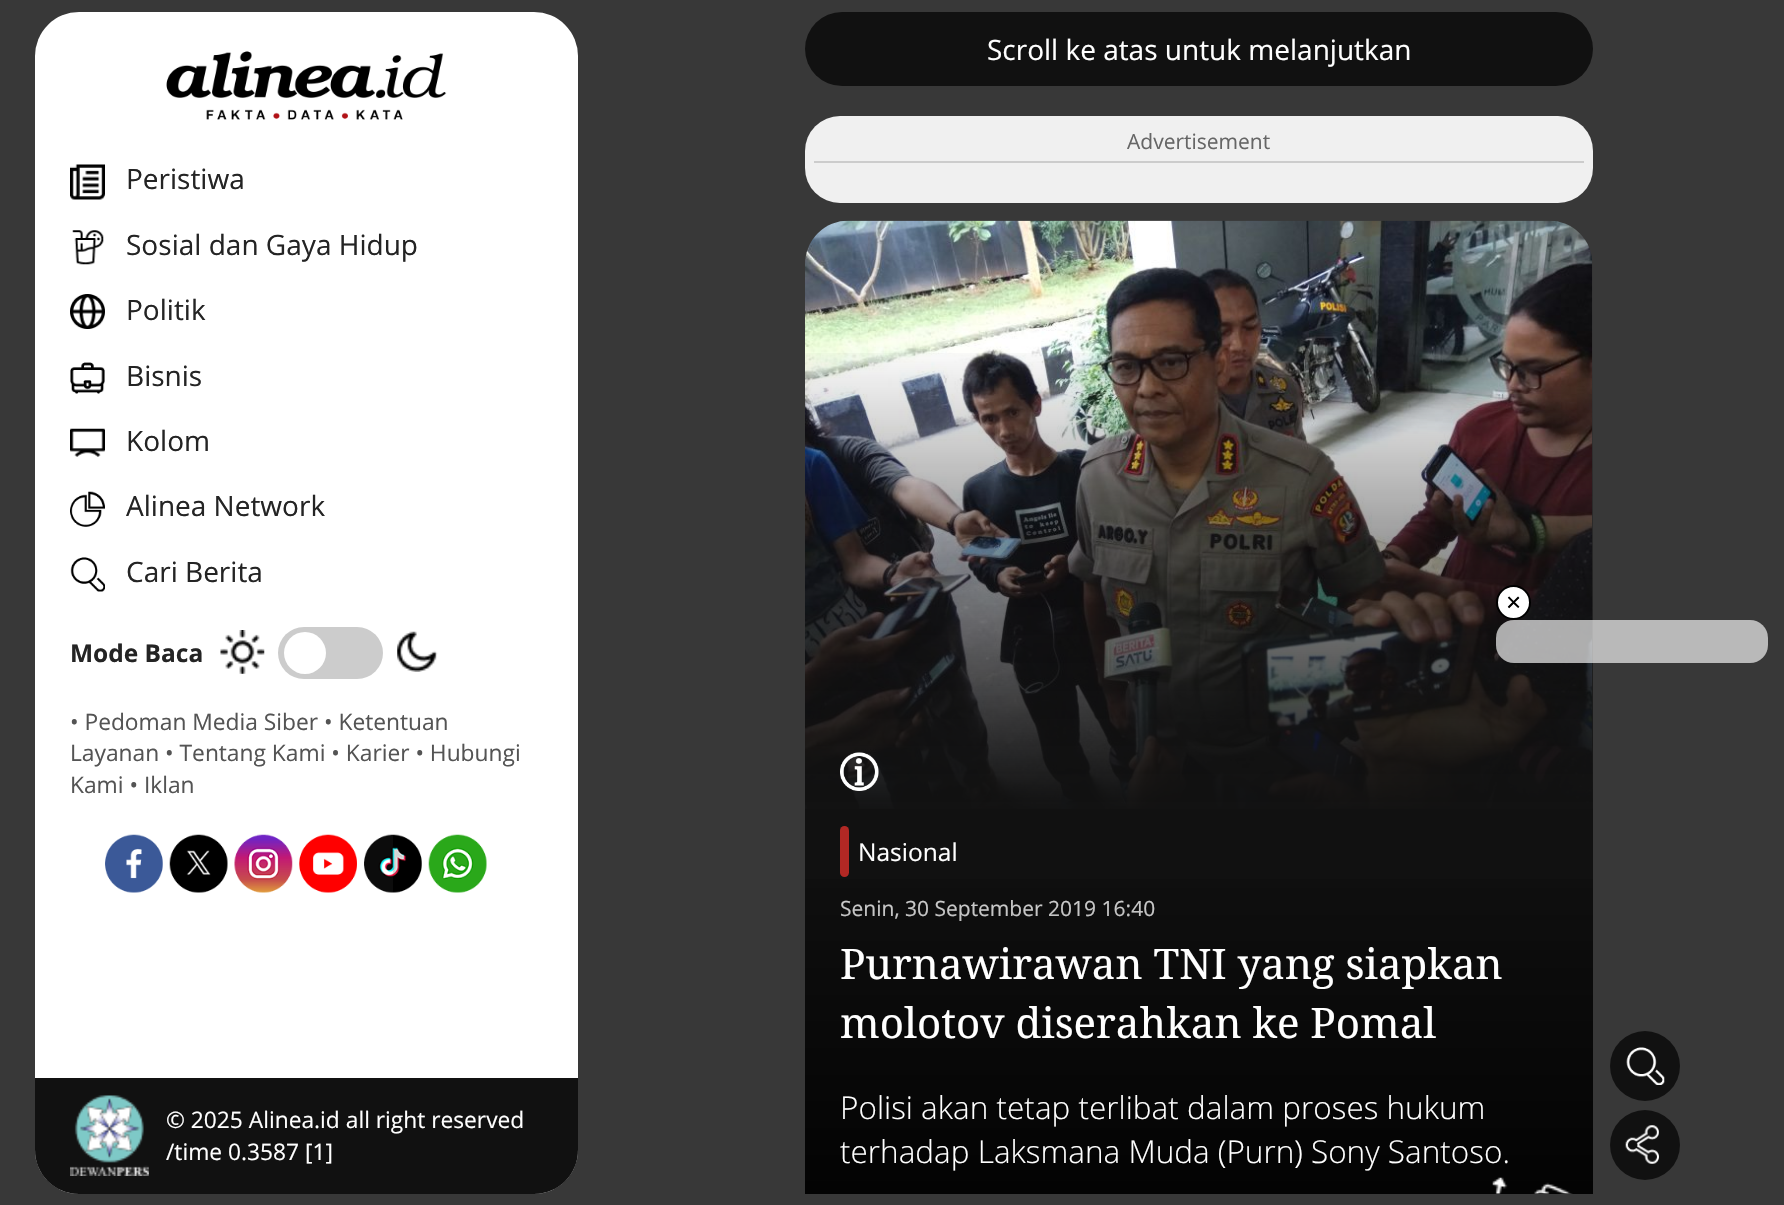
void draw(SkCanvas* c) {
SkPaint p;
p.setAntiAlias(true);
auto F=[&](const char* family, int weight, float size, bool italic = false){SkFontStyle style(weight, SkFontStyle::kNormal_Width,italic ? SkFontStyle::kItalic_Slant : SkFontStyle::kUpright_Slant);SkFont result(fontMgr->matchFamilyStyle(family, style), size);result.setSubpixel(true);return result;};
auto T=[&](const char* s, float x, float y, const SkFont& font){c->drawString(s, x, y, font, p);};
auto R=[&](float x, float y, float w, float h){c->drawRect(SkRect::MakeXYWH(x, y, w, h), p);};
auto Q=[&](float x, float y, float w, float h, float radius){c->drawRoundRect(SkRect::MakeXYWH(x, y, w, h), radius, radius, p);};
auto I=[&](const char* path, float x, float y, float w, float h){auto image = SkImages::DeferredFromEncodedData(SkData::MakeFromFileName(path));c->drawImageRect(image, SkRect::MakeXYWH(x, y, w, h), SkSamplingOptions());};
auto P=[&](const char* data, bool evenOdd = false){SkPath result = *SkParsePath::FromSVGString(data);if (evenOdd) result.setFillType(SkPathFillType::kEvenOdd);return result;};
c->clear(0xff383838);
p.setColor(0xffffffff);
Q(35,12,543,1182,44);
I("1.png",166,51,281,69);
I("2.png",70,164,35,36);
auto f1 = F("Open Sans",400,28);
p.setColor(0xff242424);
T("Peristiwa",126,189,f1);
I("3.png",72,230,32,35);
T("Sosial dan Gaya Hidup",126,255,f1);
I("4.png",70,294,35,35);
T("Politik",126,320,f1);
I("5.png",70,362,35,32);
T("Bisnis",126,386,f1);
I("6.png",70,428,35,29);
T("Kolom",126,451,f1);
I("7.png",70,491,35,36);
T("Alinea Network",126,516,f1);
I("8.png",70,557,35,35);
T("Cari Berita",126,582,f1);
auto f2 = F("Open Sans",700,24.5);
T("Mode Baca",70,662,f2);
I("9.png",220,630,45,44);
p.setColor(0xffcccccc);
Q(278,627,105,52,26);
p.setColor(0xffffffff);
c->drawCircle(305,653,21,p);
I("10.png",397,631,41,41);
auto f3 = F("Open Sans",400,22.75);
p.setColor(0xff545454);
T("• Pedoman Media Siber • Ketentuan",70,730,f3);
T("Layanan • Tentang Kami • Karier • Hubungi",70,761,f3);
T("Kami • Iklan",70,793,f3);
I("11.png",105,834,58,59);
I("12.png",169,834,59,59);
I("13.png",234,834,59,59);
I("14.png",299,834,58,59);
I("15.png",364,834,58,59);
I("16.png",428,834,59,59);
p.setColor(0xff111111);
c->drawPath(P("M35 1078h543v72c0 24.5-19.5 44-44 44h-455c-24.5 0-44-19.5-44-44z"),p);
I("17.png",70,1095,79,81);
p.setColor(0xffffffff);
T("© 2025 Alinea.id all right reserved",166,1128,f3);
T("/time 0.3587 [1]",166,1160,f3);
p.setColor(0xff111111);
Q(805,12,788,74,37);
p.setColor(0xffffffff);
T("Scroll ke atas untuk melanjutkan",987,60,f1);
p.setColor(0xfff0f0f0);
Q(805,116,788,87,35);
p.setColor(0xffcccccc);
R(814,161,770,2);
auto f4 = F("Open Sans",400,21);
p.setColor(0xff666666);
T("Advertisement",1127,149,f4);
I("18.png",805,220,788,589);
{
const SkColor colors[] = {0x00111111,0xff111111};
const float stops[] = {0,1};
const SkPoint ends[] = {{1199,343}, {1199,816}};
p.setShader(SkGradientShader::MakeLinear(ends, colors, stops, 2, SkTileMode::kClamp));
p.setAlpha(255);
}
R(805,353,788,456);
p.setShader(nullptr);
p.setColor(0xff111111);
R(805,809,788,385);
I("19.png",840,752,39,39);
p.setColor(0xffb22824);
Q(840,826,9,51,4.5);
auto f5 = F("Open Sans",400,24.5);
p.setColor(0xffffffff);
T("Nasional",858,861,f5);
T("Senin, 30 September 2019 16:40",840,916,f4);
{
const SkColor colors[] = {0x00000000,0xff000000};
const float stops[] = {0,1};
const SkPoint ends[] = {{1199,809}, {1199,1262}};
p.setShader(SkGradientShader::MakeLinear(ends, colors, stops, 2, SkTileMode::kClamp));
p.setAlpha(255);
}
R(805,879,788,315);
auto f6 = F("Noto Serif",400,42);
p.setShader(nullptr);
p.setColor(0xffffffff);
T("Purnawirawan TNI yang siapkan",840,979,f6);
T("molotov diserahkan ke Pomal",840,1038,f6);
auto f7 = F("Open Sans",300,31.5);
T("Polisi akan tetap terlibat dalam proses hukum",840,1119,f7);
T("terhadap Laksmana Muda (Purn) Sony Santoso.",840,1163,f7);
I("20.png",1492,1177,81,17);
p.setColor(0xff111111);
c->drawCircle(1645,1066,35,p);
I("21.png",1626,1047,39,38);
c->drawCircle(1645,1145,35,p);
I("22.png",1625,1125,34,39);
p.setColor(0xb3f0f0f0);
Q(1496,620,272,43,18);
p.setColor(0xffffffff);
c->drawCircle(1513.5,602.5,16.5,p);
p.setStroke(true);
p.setStrokeWidth(2);
p.setColor(0xff000000);
c->drawCircle(1513.5,602.5,16.5,p);
auto f8 = F("Liberation Sans",400,26);
p.setStroke(false);
T("×",1506,611,f8);
}
